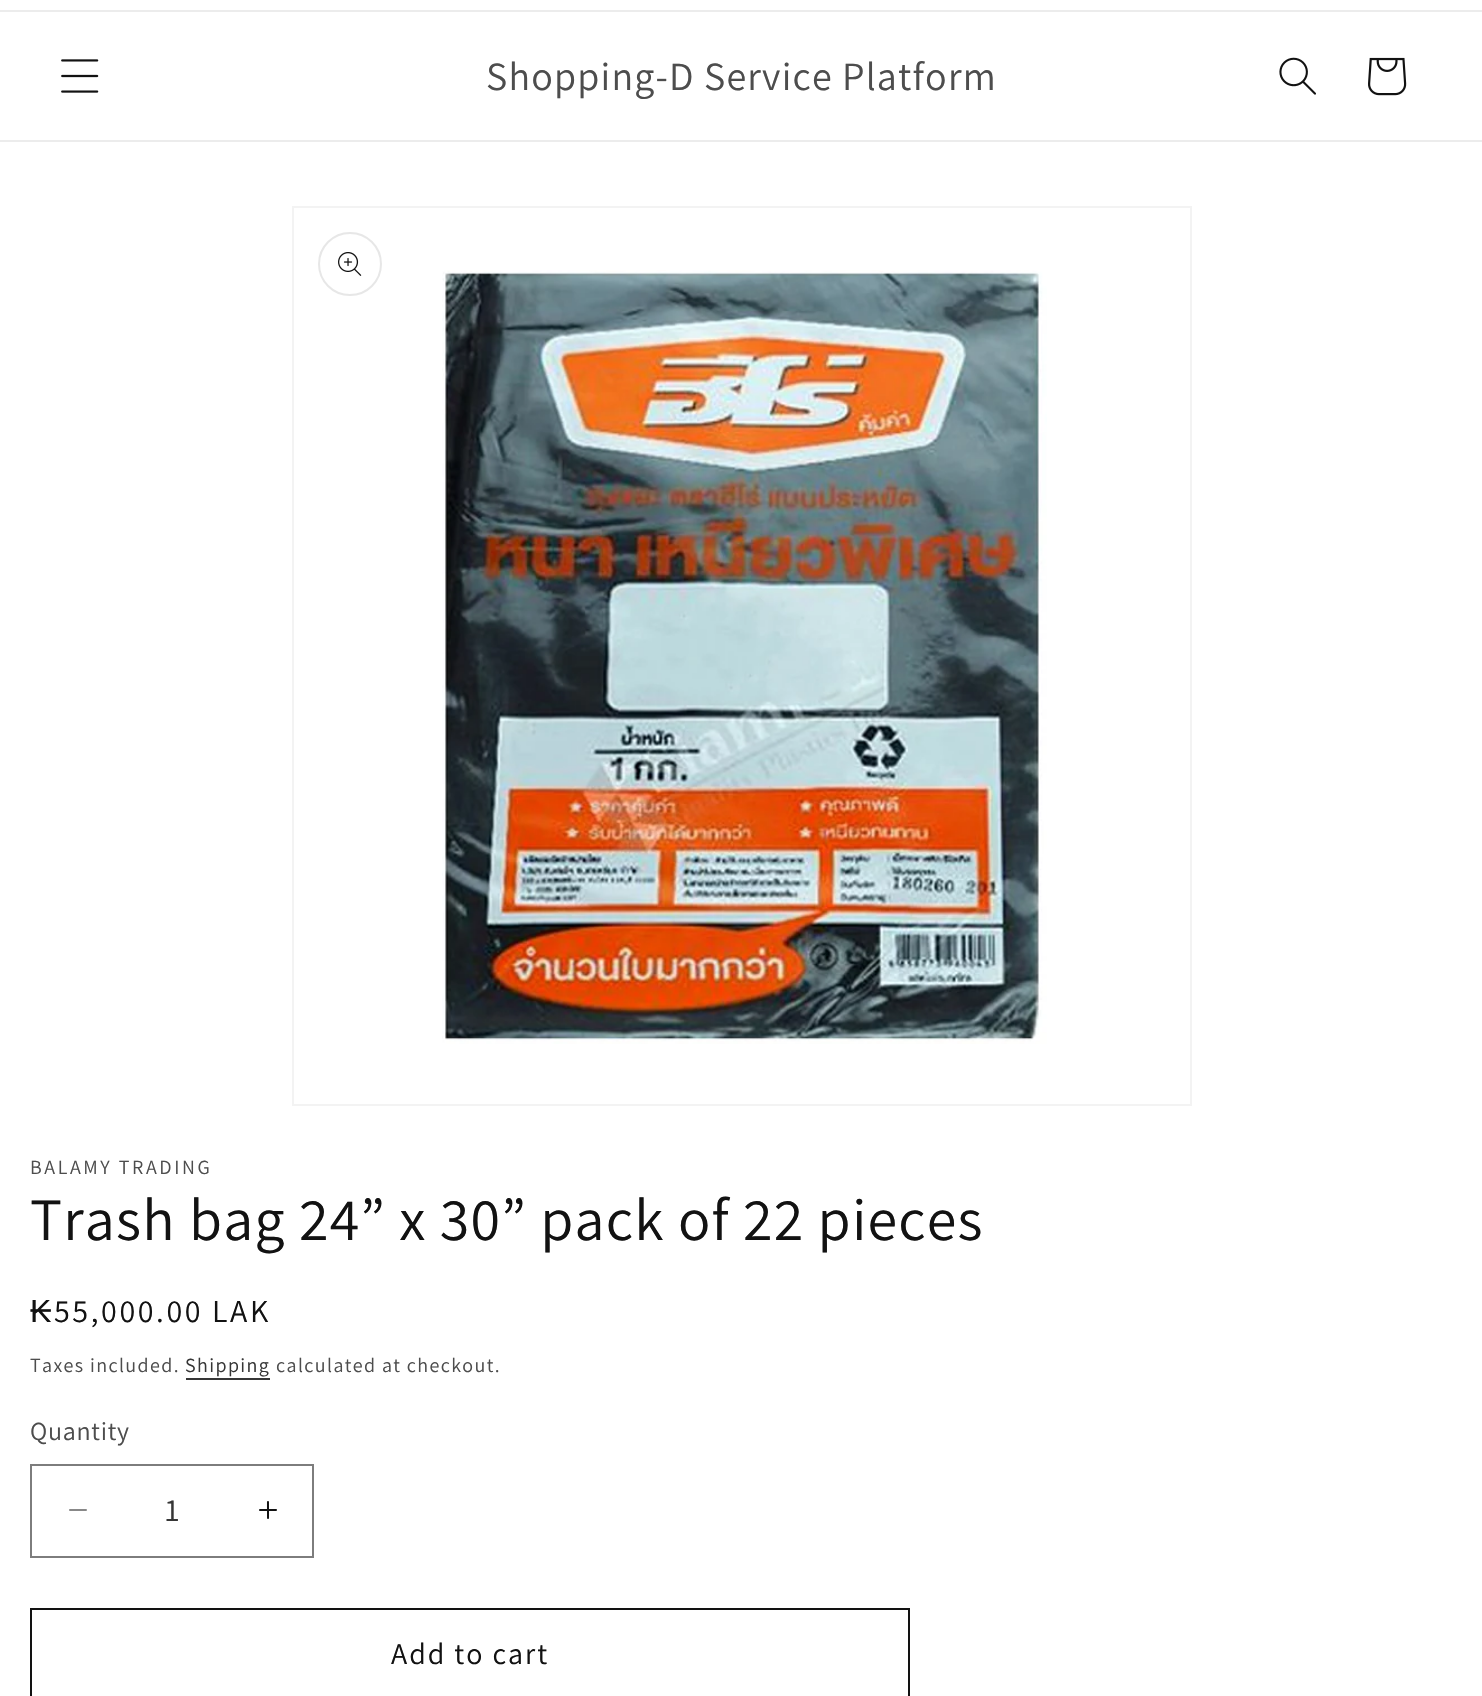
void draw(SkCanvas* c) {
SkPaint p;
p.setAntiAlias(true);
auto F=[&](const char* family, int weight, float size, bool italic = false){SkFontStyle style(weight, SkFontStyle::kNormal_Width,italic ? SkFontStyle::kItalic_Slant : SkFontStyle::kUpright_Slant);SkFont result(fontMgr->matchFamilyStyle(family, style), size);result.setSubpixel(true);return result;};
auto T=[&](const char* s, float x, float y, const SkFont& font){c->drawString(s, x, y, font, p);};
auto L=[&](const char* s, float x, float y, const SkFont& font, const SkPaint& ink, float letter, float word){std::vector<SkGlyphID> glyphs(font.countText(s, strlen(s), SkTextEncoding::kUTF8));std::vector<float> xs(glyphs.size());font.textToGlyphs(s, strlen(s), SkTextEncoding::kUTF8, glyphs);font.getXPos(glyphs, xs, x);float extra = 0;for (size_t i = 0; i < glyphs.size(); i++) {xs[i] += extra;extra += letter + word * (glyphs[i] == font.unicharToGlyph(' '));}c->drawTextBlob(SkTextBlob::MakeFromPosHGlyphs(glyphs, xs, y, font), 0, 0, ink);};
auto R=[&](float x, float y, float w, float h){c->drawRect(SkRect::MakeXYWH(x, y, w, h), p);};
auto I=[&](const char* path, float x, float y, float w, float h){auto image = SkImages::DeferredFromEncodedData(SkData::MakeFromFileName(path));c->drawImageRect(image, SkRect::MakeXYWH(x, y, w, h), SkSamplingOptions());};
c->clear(0xffffffff);
p.setColor(0xffececec);
R(0,10,1482,2);
R(0,140,1482,2);
I("1.png",61,59,38,34);
auto f1 = F("Assistant",400,40);
p.setColor(0xff4d4d4d);
L("Shopping-D Service Platform",486,90,f1,p,1.2,0);
I("2.png",1279,57,37,38);
I("3.png",1368,57,39,39);
p.setStroke(true);
p.setStrokeWidth(2);
p.setColor(0xfff3f3f3);
c->drawRect(SkRect::MakeXYWH(293,207,898,898),p);
p.setColor(0xffe7e7e7);
c->drawCircle(350,264,31,p);
I("4.png",338,252,24,24);
I("5.png",442,270,605,774);
auto f2 = F("Assistant",400,20);
p.setStroke(false);
p.setColor(0xff4d4d4d);
L("BALAMY TRADING",30,1174,f2,p,2.6,0);
auto f3 = F("Assistant",400,60);
p.setColor(0xff121212);
L("Trash bag 24” x 30” pack of 22 pieces",30,1240,f3,p,1.2,0);
auto f4 = F("Liberation Sans",400,32);
L("₭",30,1322,f4,p,2.6,0);
auto f5 = F("Assistant",400,32);
L("55,000.00 LAK",54,1322,f5,p,2.6,0);
p.setColor(0xff4d4d4d);
L("Taxes included.",30,1372,f2,p,1.4,0);
p.setColor(0xff363636);
L("Shipping",185,1372,f2,p,1.4,0);
R(186,1378,84,2);
p.setColor(0xff4d4d4d);
L("calculated at checkout.",276,1372,f2,p,1.4,0);
auto f6 = F("Assistant",400,26);
L("Quantity",30,1440,f6,p,.75,0);
I("6.png",69,1509,18,2);
I("7.png",259,1501,18,18);
p.setStroke(true);
p.setColor(0xff7d7d7d);
c->drawRect(SkRect::MakeXYWH(31,1465,282,92),p);
p.setStroke(false);
p.setColor(0xff363636);
T("1",165,1521,f5);
p.setStroke(true);
p.setColor(0xff121212);
c->drawRect(SkRect::MakeXYWH(31,1609,878,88),p);
auto f7 = F("Assistant",400,30);
p.setStroke(false);
L("Add to cart",391,1664,f7,p,2,0);
}
